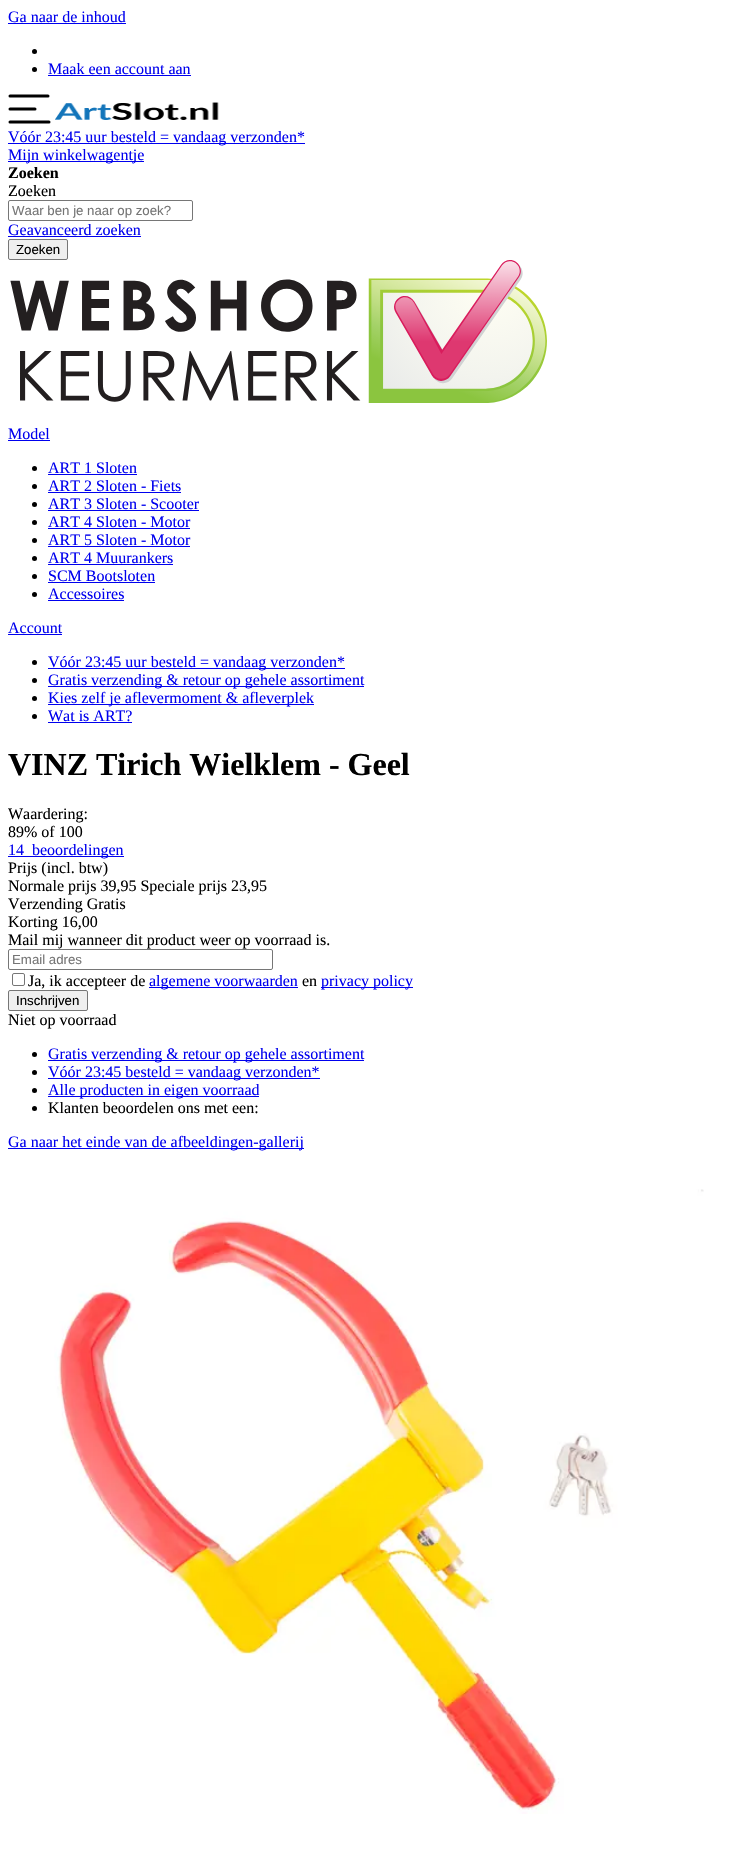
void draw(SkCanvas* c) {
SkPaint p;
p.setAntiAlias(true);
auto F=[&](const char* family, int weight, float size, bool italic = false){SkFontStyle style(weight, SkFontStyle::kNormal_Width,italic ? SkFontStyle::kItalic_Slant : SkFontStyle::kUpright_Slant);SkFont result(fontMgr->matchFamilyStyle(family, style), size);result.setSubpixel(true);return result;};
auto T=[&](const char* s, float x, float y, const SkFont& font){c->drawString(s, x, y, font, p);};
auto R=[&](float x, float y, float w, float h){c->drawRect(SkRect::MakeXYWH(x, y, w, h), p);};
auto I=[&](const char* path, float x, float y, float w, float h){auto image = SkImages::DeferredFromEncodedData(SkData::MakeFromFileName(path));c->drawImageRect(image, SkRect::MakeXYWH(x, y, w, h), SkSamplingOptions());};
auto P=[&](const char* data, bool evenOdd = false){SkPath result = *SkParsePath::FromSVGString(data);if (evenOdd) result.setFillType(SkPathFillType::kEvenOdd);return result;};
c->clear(0xffffffff);
auto f1 = F("Liberation Serif",400,16);
p.setColor(0xff0000ee);
T("Ga naar de inhoud",8,22,f1);
R(8,23,118,1);
p.setColor(0xff000000);
c->drawCircle(34.5,51.5,2.5,p);
c->drawCircle(34.5,69.5,2.5,p);
p.setColor(0xff0000ee);
T("Maak een account aan",48,74,f1);
R(48,75,143,1);
p.setStroke(true);
p.setStrokeWidth(3);
p.setStrokeCap(SkPaint::kRound_Cap);
p.setColor(0xff000000);
c->drawPath(P("M10 122h39m-39-26h38m-38 13h25"),p);
I("1.png",55,102,164,18);
p.setStroke(false);
p.setColor(0xff0000ee);
R(8,143,297,1);
T("Vóór 23:45 uur besteld = vandaag verzonden*",8,142,f1);
R(8,161,136,1);
T("Mijn winkelwagentje",8,160,f1);
auto f2 = F("Liberation Serif",700,16);
p.setColor(0xff000000);
T("Zoeken",8,178,f2);
T("Zoeken",8,196,f1);
p.setStroke(true);
p.setStrokeWidth(1);
p.setStrokeCap(SkPaint::kButt_Cap);
p.setColor(0xff767676);
c->drawRoundRect(SkRect::MakeXYWH(8.5,200.5,184,20),1.5,1.5,p);
auto f3 = F("Liberation Sans",400,13.25);
p.setStroke(false);
p.setColor(0xff757575);
T("Waar ben je naar op zoek?",12,215,f3);
p.setColor(0xff0000ee);
T("Geavanceerd zoeken",8,235,f1);
R(8,236,133,1);
p.setColor(0xffefefef);
c->drawRoundRect(SkRect::MakeXYWH(8.5,239.5,59,20),1.5,1.5,p);
p.setStroke(true);
p.setColor(0xff767676);
c->drawRoundRect(SkRect::MakeXYWH(8.5,239.5,59,20),1.5,1.5,p);
p.setStroke(false);
p.setColor(0xff000000);
T("Zoeken",16,254,f3);
I("2.png",10,260,537,143);
p.setColor(0xff0000ee);
T("Model",8,439,f1);
R(8,440,42,1);
p.setColor(0xff000000);
c->drawCircle(34.5,468.5,2.5,p);
p.setColor(0xff0000ee);
T("ART 1 Sloten",48,473,f1);
R(48,474,89,1);
p.setColor(0xff000000);
c->drawCircle(34.5,486.5,2.5,p);
p.setColor(0xff0000ee);
T("ART 2 Sloten - Fiets",48,491,f1);
R(48,492,133,1);
p.setColor(0xff000000);
c->drawCircle(34.5,504.5,2.5,p);
p.setColor(0xff0000ee);
T("ART 3 Sloten - Scooter",48,509,f1);
R(48,510,151,1);
p.setColor(0xff000000);
c->drawCircle(34.5,522.5,2.5,p);
p.setColor(0xff0000ee);
T("ART 4 Sloten - Motor",48,527,f1);
R(48,528,142,1);
p.setColor(0xff000000);
c->drawCircle(34.5,540.5,2.5,p);
p.setColor(0xff0000ee);
T("ART 5 Sloten - Motor",48,545,f1);
R(48,546,142,1);
p.setColor(0xff000000);
c->drawCircle(34.5,558.5,2.5,p);
p.setColor(0xff0000ee);
T("ART 4 Muurankers",48,563,f1);
R(48,564,125,1);
p.setColor(0xff000000);
c->drawCircle(34.5,576.5,2.5,p);
p.setColor(0xff0000ee);
T("SCM Bootsloten",48,581,f1);
R(48,582,107,1);
p.setColor(0xff000000);
c->drawCircle(34.5,594.5,2.5,p);
p.setColor(0xff0000ee);
T("Accessoires",48,599,f1);
R(48,600,76,1);
T("Account",8,633,f1);
R(8,634,54,1);
p.setColor(0xff000000);
c->drawCircle(34.5,662.5,2.5,p);
p.setColor(0xff0000ee);
R(48,668,297,1);
T("Vóór 23:45 uur besteld = vandaag verzonden*",48,667,f1);
p.setColor(0xff000000);
c->drawCircle(34.5,680.5,2.5,p);
p.setColor(0xff0000ee);
R(48,686,316,1);
T("Gratis verzending & retour op gehele assortiment",48,685,f1);
p.setColor(0xff000000);
c->drawCircle(34.5,698.5,2.5,p);
p.setColor(0xff0000ee);
R(48,704,266,1);
T("Kies zelf je aflevermoment & afleverplek",48,703,f1);
p.setColor(0xff000000);
c->drawCircle(34.5,716.5,2.5,p);
p.setColor(0xff0000ee);
T("Wat is ART?",48,721,f1);
R(48,722,84,1);
auto f4 = F("Liberation Serif",700,32);
p.setColor(0xff000000);
T("VINZ Tirich Wielklem - Geel",8,775,f4);
T("Waardering:",8,819,f1);
T("89% of 100",8,837,f1);
p.setColor(0xff0000ee);
T("14",8,855,f1);
R(8,856,116,1);
T("beoordelingen",32,855,f1);
p.setColor(0xff000000);
T("Prijs (incl. btw)",8,873,f1);
T("Normale prijs 39,95 Speciale prijs 23,95",8,891,f1);
T("Verzending Gratis",8,909,f1);
T("Korting 16,00",8,927,f1);
T("Mail mij wanneer dit product weer op voorraad is.",8,945,f1);
p.setStroke(true);
p.setColor(0xff767676);
c->drawRoundRect(SkRect::MakeXYWH(8.5,949.5,264,20),1.5,1.5,p);
p.setStroke(false);
p.setColor(0xff757575);
T("Email adres",12,964,f3);
p.setStroke(true);
p.setColor(0xff767676);
c->drawRoundRect(SkRect::MakeXYWH(12.5,973.5,12,12),1.5,1.5,p);
p.setStroke(false);
p.setColor(0xff000000);
T("Ja, ik accepteer de",28,986,f1);
p.setColor(0xff0000ee);
R(149,987,149,1);
T("algemene voorwaarden",149,986,f1);
p.setColor(0xff000000);
T("en",302,986,f1);
p.setColor(0xff0000ee);
R(321,987,92,1);
T("privacy policy",321,986,f1);
p.setColor(0xffefefef);
c->drawRoundRect(SkRect::MakeXYWH(8.5,990.5,79,20),1.5,1.5,p);
p.setStroke(true);
p.setColor(0xff767676);
c->drawRoundRect(SkRect::MakeXYWH(8.5,990.5,79,20),1.5,1.5,p);
p.setStroke(false);
p.setColor(0xff000000);
T("Inschrijven",16,1005,f3);
T("Niet op voorraad",8,1025,f1);
c->drawCircle(34.5,1054.5,2.5,p);
p.setColor(0xff0000ee);
R(48,1060,316,1);
T("Gratis verzending & retour op gehele assortiment",48,1059,f1);
p.setColor(0xff000000);
c->drawCircle(34.5,1072.5,2.5,p);
p.setColor(0xff0000ee);
R(48,1078,272,1);
T("Vóór 23:45 besteld = vandaag verzonden*",48,1077,f1);
p.setColor(0xff000000);
c->drawCircle(34.5,1090.5,2.5,p);
p.setColor(0xff0000ee);
R(48,1096,211,1);
T("Alle producten in eigen voorraad",48,1095,f1);
p.setColor(0xff000000);
c->drawCircle(34.5,1108.5,2.5,p);
T("Klanten beoordelen ons met een:",48,1113,f1);
p.setColor(0xff0000ee);
R(8,1148,296,1);
T("Ga naar het einde van de afbeeldingen-gallerij",8,1147,f1);
I("3.png",54,1189,650,625);
}
